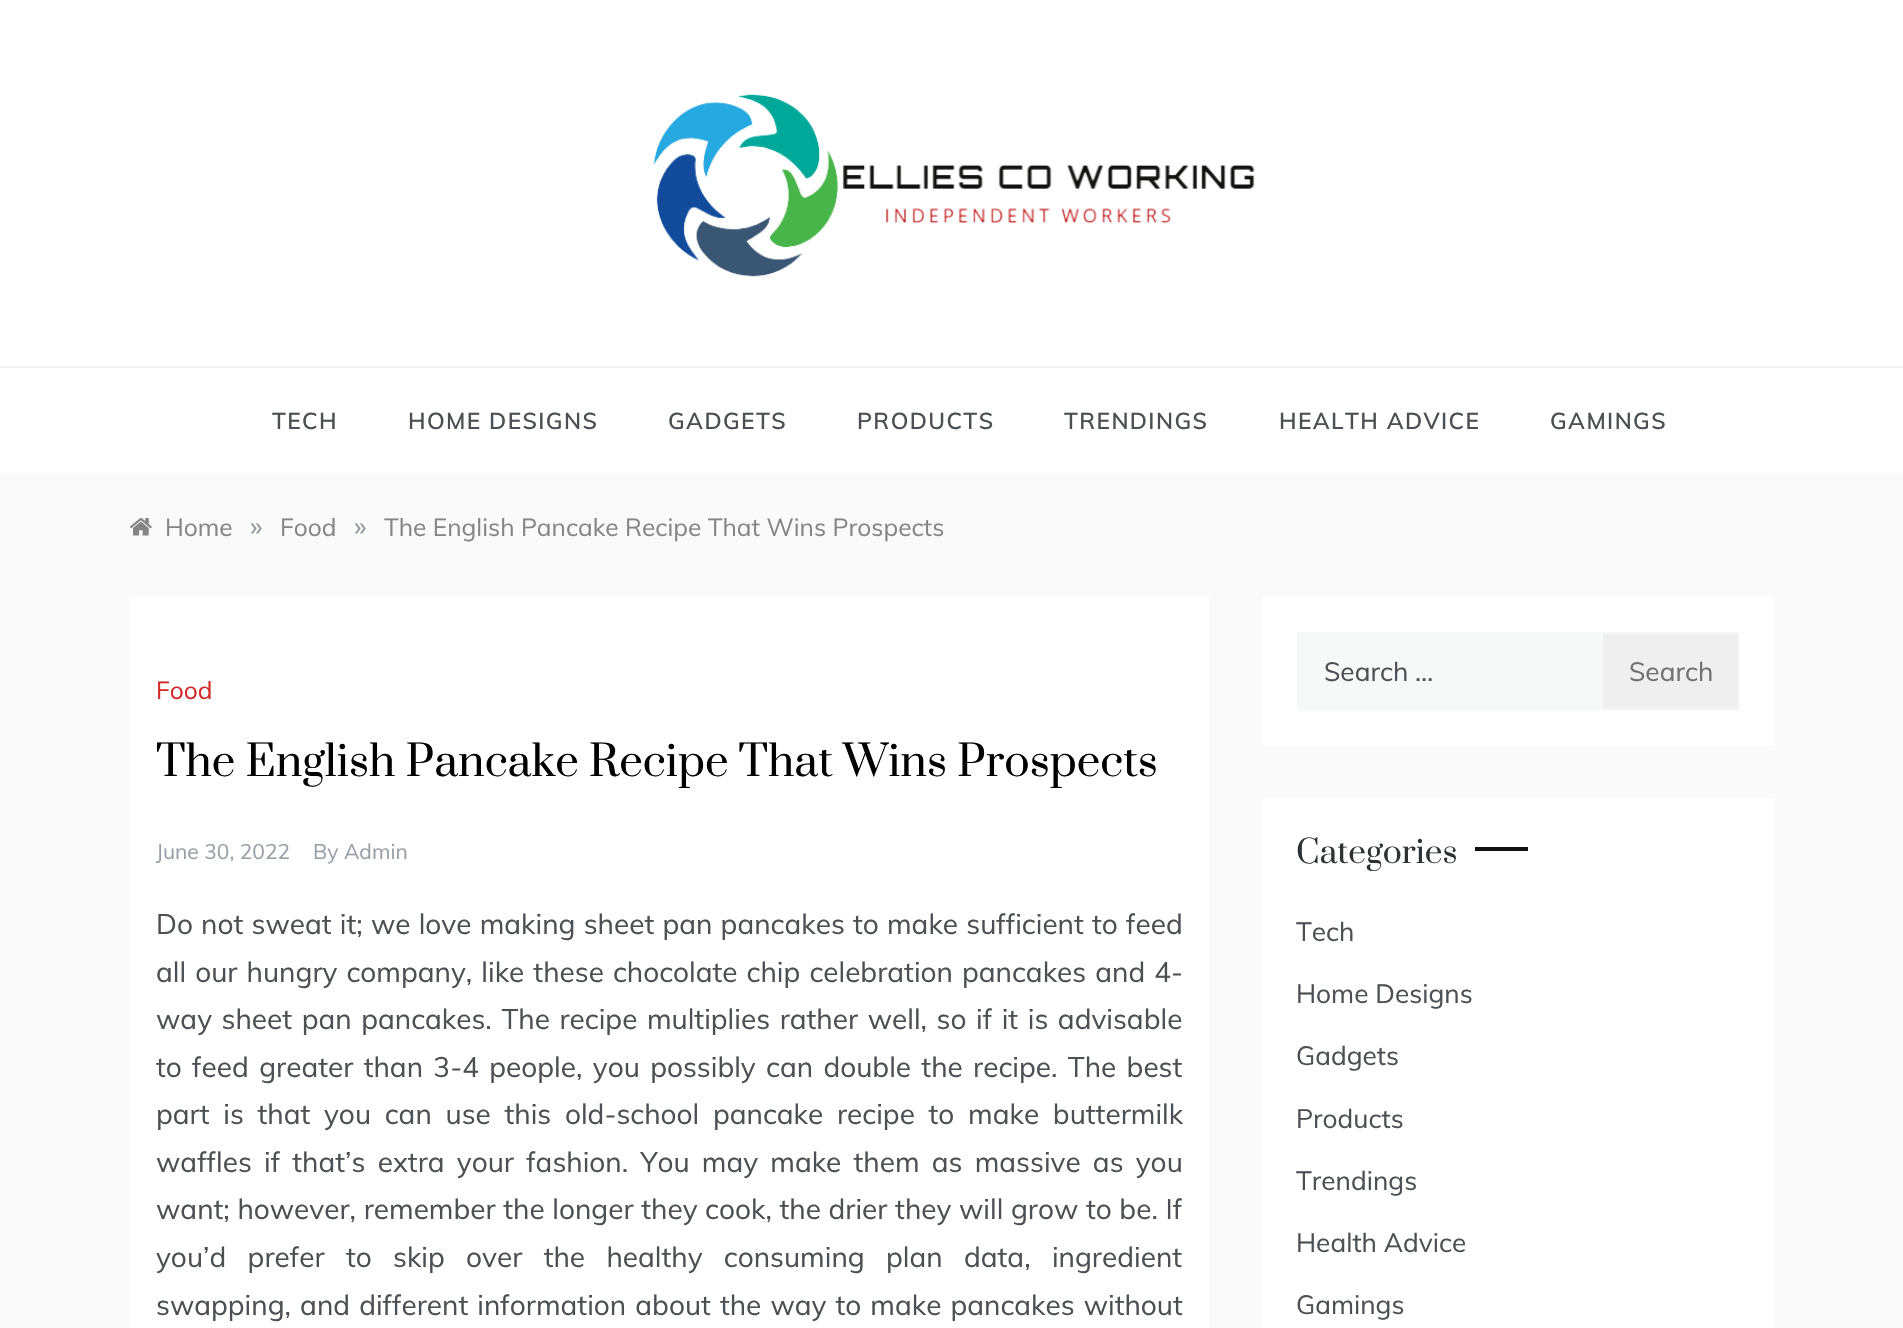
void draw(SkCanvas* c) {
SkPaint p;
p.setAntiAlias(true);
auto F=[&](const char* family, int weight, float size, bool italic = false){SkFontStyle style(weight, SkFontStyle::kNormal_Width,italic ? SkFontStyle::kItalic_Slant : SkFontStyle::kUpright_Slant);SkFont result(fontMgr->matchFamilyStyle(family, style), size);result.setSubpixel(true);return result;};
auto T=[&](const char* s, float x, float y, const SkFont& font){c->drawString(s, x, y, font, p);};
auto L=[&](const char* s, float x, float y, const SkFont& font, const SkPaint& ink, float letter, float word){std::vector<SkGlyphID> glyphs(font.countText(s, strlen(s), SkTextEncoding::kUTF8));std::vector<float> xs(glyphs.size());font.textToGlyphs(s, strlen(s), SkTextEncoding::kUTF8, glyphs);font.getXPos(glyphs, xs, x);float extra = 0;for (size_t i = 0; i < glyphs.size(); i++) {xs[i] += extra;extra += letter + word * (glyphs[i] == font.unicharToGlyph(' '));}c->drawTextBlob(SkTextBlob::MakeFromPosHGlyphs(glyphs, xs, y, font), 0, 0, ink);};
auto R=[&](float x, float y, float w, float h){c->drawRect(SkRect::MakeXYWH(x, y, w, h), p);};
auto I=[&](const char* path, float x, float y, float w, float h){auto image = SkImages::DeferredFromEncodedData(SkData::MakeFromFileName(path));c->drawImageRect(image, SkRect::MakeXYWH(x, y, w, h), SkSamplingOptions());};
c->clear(0xfffafafa);
p.setColor(0xffffffff);
R(0,0,1903,473);
p.setColor(0xfff2f2f2);
R(0,366,1903,2);
I("1.png",653,94,602,183);
auto f1 = F("Muli",600,22.75);
p.setColor(0xff4c4f53);
L("TECH",272,429,f1,p,1.4,0);
L("HOME DESIGNS",408,429,f1,p,1.4,0);
L("GADGETS",668,429,f1,p,1.4,0);
L("PRODUCTS",857,429,f1,p,1.4,0);
L("TRENDINGS",1064,429,f1,p,1.4,0);
L("HEALTH ADVICE",1279,429,f1,p,1.4,0);
L("GAMINGS",1550,429,f1,p,1.4,0);
I("2.png",129,518,23,18);
auto f2 = F("Muli",400,24.5);
p.setColor(0xff858585);
T("Home",165,536,f2);
auto f3 = F("Muli",400,28);
p.setColor(0xff8d97a1);
T("»",250,536,f3);
p.setColor(0xff858585);
T("Food",280,536,f2);
p.setColor(0xff8d97a1);
T("»",354,536,f3);
p.setColor(0xff858585);
T("The English Pancake Recipe That Wins Prospects",384,536,f2);
p.setColor(0xffffffff);
R(130,597,1079,731);
p.setColor(0xffd42929);
T("Food",156,699,f2);
auto f4 = F("Prata",400,42);
p.setColor(0xff000000);
T("The English Pancake Recipe That Wins Prospects",156,776,f4);
auto f5 = F("Muli",400,21);
p.setColor(0xff989ea6);
T("June 30, 2022",156,859,f5);
T("By Admin",313,859,f5);
p.setColor(0xff4c4f53);
L("Do not sweat it; we love making sheet pan pancakes to make sufficient to feed",156,934,f3,p,0,.9);
L("all our hungry company, like these chocolate chip celebration pancakes and 4-",156,982,f3,p,0,1.75);
L("way sheet pan pancakes. The recipe multiplies rather well, so if it is advisable",156,1029,f3,p,0,2.25);
L("to feed greater than 3-4 people, you possibly can double the recipe. The best",156,1077,f3,p,0,3);
L("part is that you can use this old-school pancake recipe to make buttermilk",156,1124,f3,p,0,6.4);
L("waffles if that’s extra your fashion. You may make them as massive as you",156,1172,f3,p,0,4.9);
L("want; however, remember the longer they cook, the drier they will grow to be. If",156,1219,f3,p,0,.3);
L("you’d prefer to skip over the healthy consuming plan data, ingredient",156,1267,f3,p,0,14);
L("swapping, and different information about the way to make pancakes without",156,1315,f3,p,0,1.75);
p.setColor(0xffffffff);
R(1262,597,513,149);
p.setColor(0xfff7f8f8);
R(1297,632,304,79);
auto f6 = F("Muli",400,26.25);
p.setColor(0xff4c4f53);
T("Search …",1324,681,f6);
p.setColor(0xffefefef);
c->drawRect(SkRect::MakeXYWH(1602,633,137,77),p);
p.setStroke(true);
p.setStrokeWidth(2);
p.setColor(0xfff7f8f8);
c->drawRect(SkRect::MakeXYWH(1602,633,137,77),p);
p.setStroke(false);
p.setColor(0xff6f6f6f);
T("Search",1629,681,f6);
p.setColor(0xffffffff);
R(1262,798,513,530);
auto f7 = F("Prata",400,31.5);
p.setColor(0xff2f3235);
T("Categories",1296,863,f7);
p.setColor(0xff111111);
R(1475,847,53,4);
p.setColor(0xff4c4f53);
T("Tech",1296,941,f6);
T("Home Designs",1296,1003,f6);
T("Gadgets",1296,1065,f6);
T("Products",1296,1128,f6);
T("Trendings",1296,1190,f6);
T("Health Advice",1296,1252,f6);
T("Gamings",1296,1314,f6);
}
